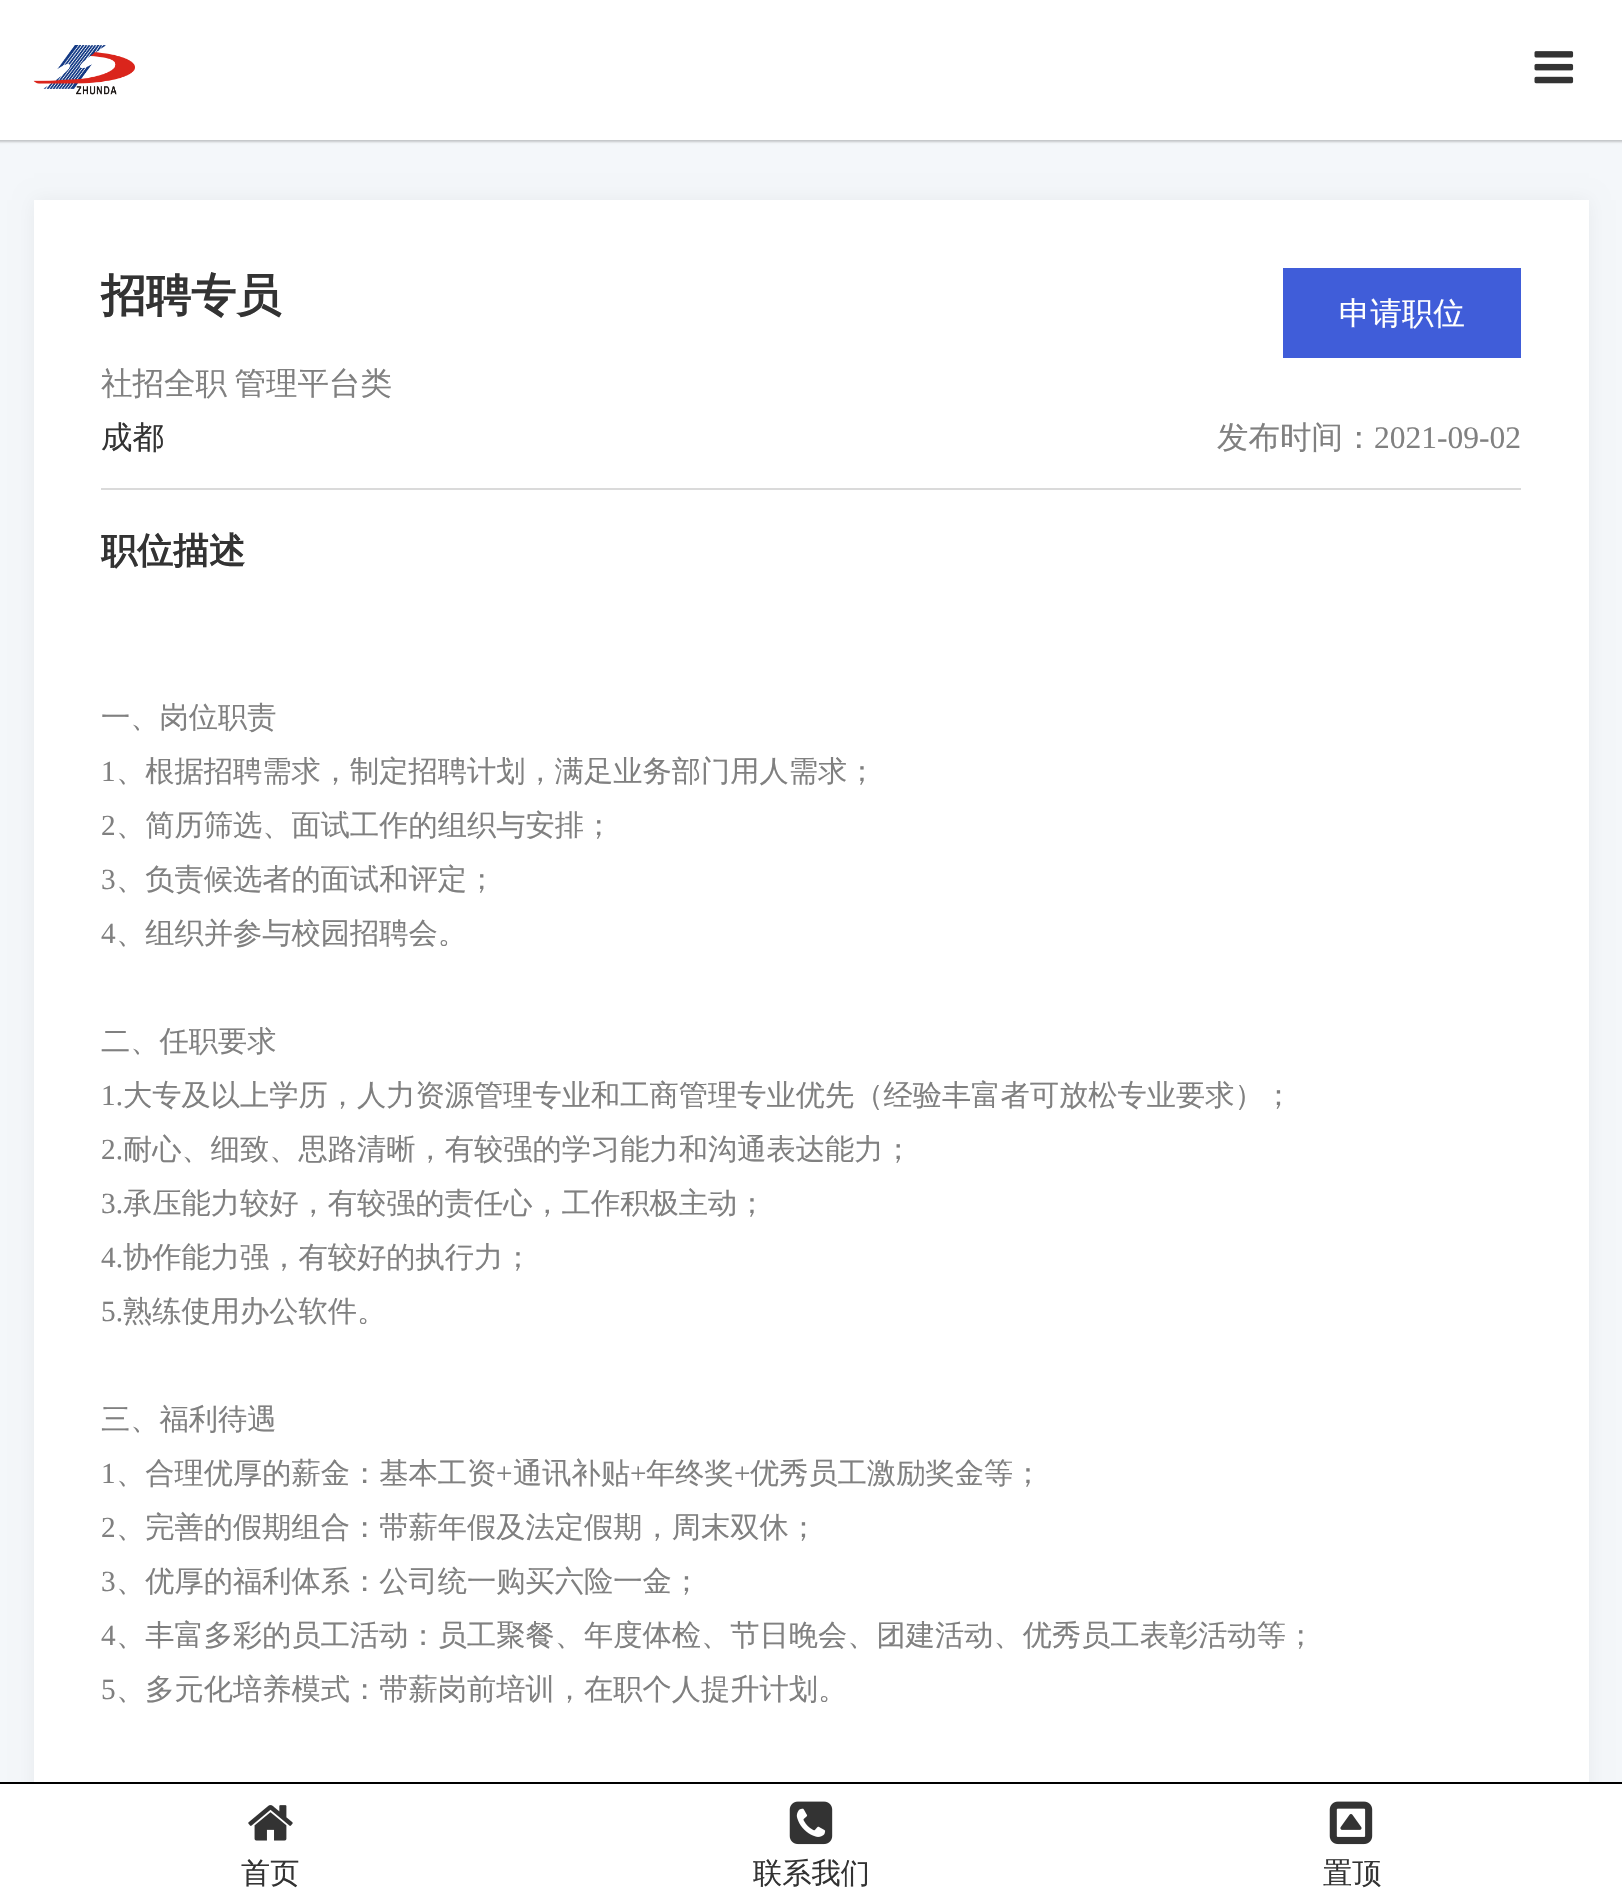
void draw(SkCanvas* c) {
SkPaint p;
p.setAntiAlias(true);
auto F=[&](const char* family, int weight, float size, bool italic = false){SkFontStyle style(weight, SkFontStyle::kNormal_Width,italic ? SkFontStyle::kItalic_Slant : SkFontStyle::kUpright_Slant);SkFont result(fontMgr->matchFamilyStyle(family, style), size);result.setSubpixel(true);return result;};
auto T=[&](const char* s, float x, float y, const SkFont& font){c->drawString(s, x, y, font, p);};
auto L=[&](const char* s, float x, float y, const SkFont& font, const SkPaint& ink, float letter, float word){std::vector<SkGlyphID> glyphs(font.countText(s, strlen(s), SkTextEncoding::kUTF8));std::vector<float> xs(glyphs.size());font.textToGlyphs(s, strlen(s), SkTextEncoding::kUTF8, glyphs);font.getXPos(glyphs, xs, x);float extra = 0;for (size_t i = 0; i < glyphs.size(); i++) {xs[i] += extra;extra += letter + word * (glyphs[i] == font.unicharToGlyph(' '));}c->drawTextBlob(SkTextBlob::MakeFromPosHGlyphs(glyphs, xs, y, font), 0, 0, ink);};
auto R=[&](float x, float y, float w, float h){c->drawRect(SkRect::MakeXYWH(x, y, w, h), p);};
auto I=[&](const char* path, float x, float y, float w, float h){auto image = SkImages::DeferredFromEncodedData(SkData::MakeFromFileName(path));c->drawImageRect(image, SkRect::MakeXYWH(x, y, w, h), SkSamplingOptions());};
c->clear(0xfff4f7fa);
p.setColor(0x33000000);
p.setMaskFilter(SkMaskFilter::MakeBlur(kNormal_SkBlurStyle, 1));
c->drawRect(SkRect::MakeXYWH(-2,-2,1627,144),p);
p.setMaskFilter(nullptr);
p.setColor(0xffffffff);
R(0,0,1622,140);
I("1.png",33,45,102,50);
I("2.png",1534,51,40,33);
p.setColor(0x0d000000);
p.setMaskFilter(SkMaskFilter::MakeBlur(kNormal_SkBlurStyle, 9));
c->drawRect(SkRect::MakeXYWH(34,200,1555,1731),p);
p.setMaskFilter(nullptr);
p.setColor(0xffffffff);
R(34,200,1555,1582);
p.setColor(0xffdadada);
R(101,488,1420,2);
auto f1 = F("WenQuanYi Zen Hei",700,45);
p.setColor(0xff333333);
T("招聘专员",101,311,f1);
p.setColor(0xff405dd9);
R(1283,268,238,90);
auto f2 = F("WenQuanYi Zen Hei",500,31.5);
p.setColor(0xffffffff);
T("申请职位",1339,324,f2);
p.setColor(0xff808080);
L("社招全职 管理平台类",101,394,f2,p,0,-2);
p.setColor(0xff333333);
T("成都",101,448,f2);
p.setColor(0xff808080);
T("发布时间：",1217,448,f2);
auto f3 = F("Liberation Serif",400,31.5);
T("2021-09-02",1374,448,f3);
auto f4 = F("WenQuanYi Zen Hei",700,36);
p.setColor(0xff333333);
T("职位描述",101,563,f4);
auto f5 = F("WenQuanYi Zen Hei",500,29.25);
p.setColor(0xff808080);
T("一、岗位职责",101,727,f5);
auto f6 = F("Liberation Serif",400,29.25);
T("1",101,781,f6);
T("、根据招聘需求，制定招聘计划，满足业务部门用人需求；",116,781,f5);
T("2",101,835,f6);
T("、简历筛选、面试工作的组织与安排；",116,835,f5);
T("3",101,889,f6);
T("、负责候选者的面试和评定；",116,889,f5);
T("4",101,943,f6);
T("、组织并参与校园招聘会。",116,943,f5);
T("二、任职要求",101,1051,f5);
T("1.",101,1105,f6);
T("大专及以上学历，人力资源管理专业和工商管理专业优先（经验丰富者可放松专业要求）；",123,1105,f5);
T("2.",101,1159,f6);
T("耐心、细致、思路清晰，有较强的学习能力和沟通表达能力；",123,1159,f5);
T("3.",101,1213,f6);
T("承压能力较好，有较强的责任心，工作积极主动；",123,1213,f5);
T("4.",101,1267,f6);
T("协作能力强，有较好的执行力；",123,1267,f5);
T("5.",101,1321,f6);
T("熟练使用办公软件。",123,1321,f5);
T("三、福利待遇",101,1429,f5);
T("1",101,1483,f6);
T("、合理优厚的薪金：基本工资",116,1483,f5);
T("+",496,1483,f6);
T("通讯补贴",513,1483,f5);
T("+",630,1483,f6);
T("年终奖",646,1483,f5);
T("+",734,1483,f6);
T("优秀员工激励奖金等；",750,1483,f5);
T("2",101,1537,f6);
T("、完善的假期组合：带薪年假及法定假期，周末双休；",116,1537,f5);
T("3",101,1591,f6);
T("、优厚的福利体系：公司统一购买六险一金；",116,1591,f5);
T("4",101,1645,f6);
T("、丰富多彩的员工活动：员工聚餐、年度体检、节日晚会、团建活动、优秀员工表彰活动等；",116,1645,f5);
T("5",101,1699,f6);
T("、多元化培养模式：带薪岗前培训，在职个人提升计划。",116,1699,f5);
p.setColor(0xffffffff);
R(0,1784,1622,120);
p.setColor(0xff000000);
R(0,1782,1622,2);
I("3.png",248,1805,45,36);
p.setColor(0xff333333);
T("首页",241,1883,f5);
I("4.png",789,1801,44,44);
T("联系我们",753,1883,f5);
I("5.png",1329,1801,44,44);
T("置顶",1323,1883,f5);
}
